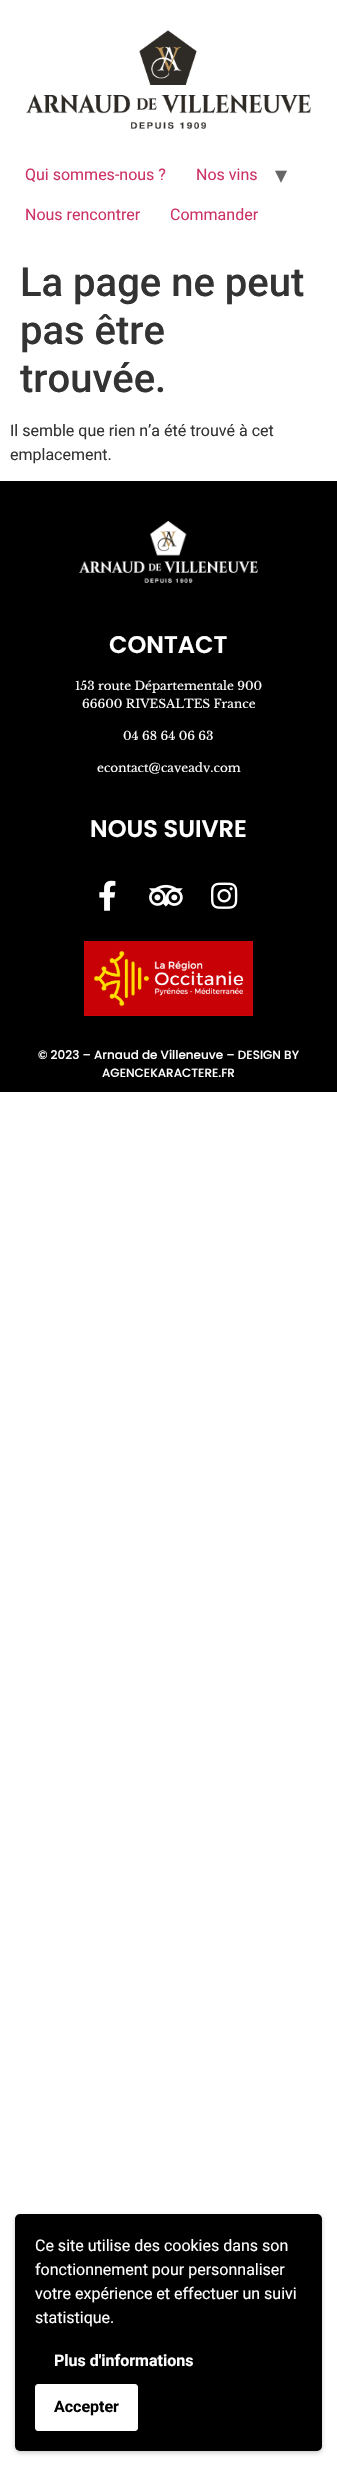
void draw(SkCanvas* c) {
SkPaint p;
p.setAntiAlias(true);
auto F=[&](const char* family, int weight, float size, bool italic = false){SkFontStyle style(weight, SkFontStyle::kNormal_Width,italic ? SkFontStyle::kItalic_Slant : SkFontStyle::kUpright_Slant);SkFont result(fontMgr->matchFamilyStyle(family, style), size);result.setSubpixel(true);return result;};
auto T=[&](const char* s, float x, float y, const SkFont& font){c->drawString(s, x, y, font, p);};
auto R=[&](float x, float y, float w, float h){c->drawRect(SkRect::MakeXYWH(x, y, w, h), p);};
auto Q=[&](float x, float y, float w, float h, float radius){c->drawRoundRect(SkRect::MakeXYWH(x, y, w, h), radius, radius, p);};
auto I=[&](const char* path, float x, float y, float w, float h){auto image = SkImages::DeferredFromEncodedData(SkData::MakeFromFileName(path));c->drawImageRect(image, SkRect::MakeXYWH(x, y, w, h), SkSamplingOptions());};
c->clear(0xffffffff);
I("1.png",26,30,285,100);
auto f1 = F("Roboto",400,16);
p.setColor(0xffcc3366);
T("Qui sommes-nous ?",25,180,f1);
T("Nos vins",196,180,f1);
auto f2 = F("DejaVu Sans",400,24);
p.setColor(0xff666666);
T("▾",275,183,f2);
p.setColor(0xffcc3366);
T("Nous rencontrer",25,220,f1);
T("Commander",170,220,f1);
auto f3 = F("Roboto",500,40);
p.setColor(0xff333333);
T("La page ne peut",20,296,f3);
T("pas être",20,344,f3);
T("trouvée.",20,392,f3);
T("Il semble que rien n’a été trouvé à cet",10,436,f1);
T("emplacement.",10,460,f1);
p.setColor(0xff000000);
R(0,481,337,611);
I("2.png",79,521,179,62);
auto f4 = F("Poppins",600,24);
p.setColor(0xffffffff);
T("CONTACT",109,653,f4);
auto f5 = F("Libre Baskerville",400,12);
T("153 route Départementale 900",75,690,f5);
T("66600 RIVESALTES France",82,708,f5);
T("04 68 64 06 63",123,740,f5);
T("econtact@caveadv.com",97,772,f5);
T("NOUS SUIVRE",90,837,f4);
I("3.png",99,880,17,31);
I("4.png",149,884,34,23);
I("5.png",211,882,27,27);
I("6.png",84,941,169,75);
auto f6 = F("Poppins",500,12);
T("© 2023 – Arnaud de Villeneuve – DESIGN BY",38,1059,f6);
T("AGENCEKARACTERE.FR",102,1077,f6);
p.setColor(0x33000000);
p.setMaskFilter(SkMaskFilter::MakeBlur(kNormal_SkBlurStyle, 2));
c->drawRoundRect(SkRect::MakeXYWH(15,2216,307,237),5,5,p);
p.setMaskFilter(nullptr);
p.setColor(0xff000000);
Q(15,2214,307,237,5);
p.setColor(0xffffffff);
T("Ce site utilise des cookies dans son",35,2251,f1);
T("fonctionnement pour personnaliser",35,2275,f1);
T("votre expérience et effectuer un suivi",35,2299,f1);
T("statistique.",35,2323,f1);
auto f7 = F("Roboto",700,16);
T("Plus d'informations",54,2366,f7);
c->drawRoundRect(SkRect::MakeXYWH(35.5,2384.5,102,46),2.5,2.5,p);
p.setStroke(true);
p.setStrokeWidth(1);
c->drawRoundRect(SkRect::MakeXYWH(35.5,2384.5,102,46),2.5,2.5,p);
p.setStroke(false);
p.setColor(0xff000000);
T("Accepter",54,2412,f7);
}
